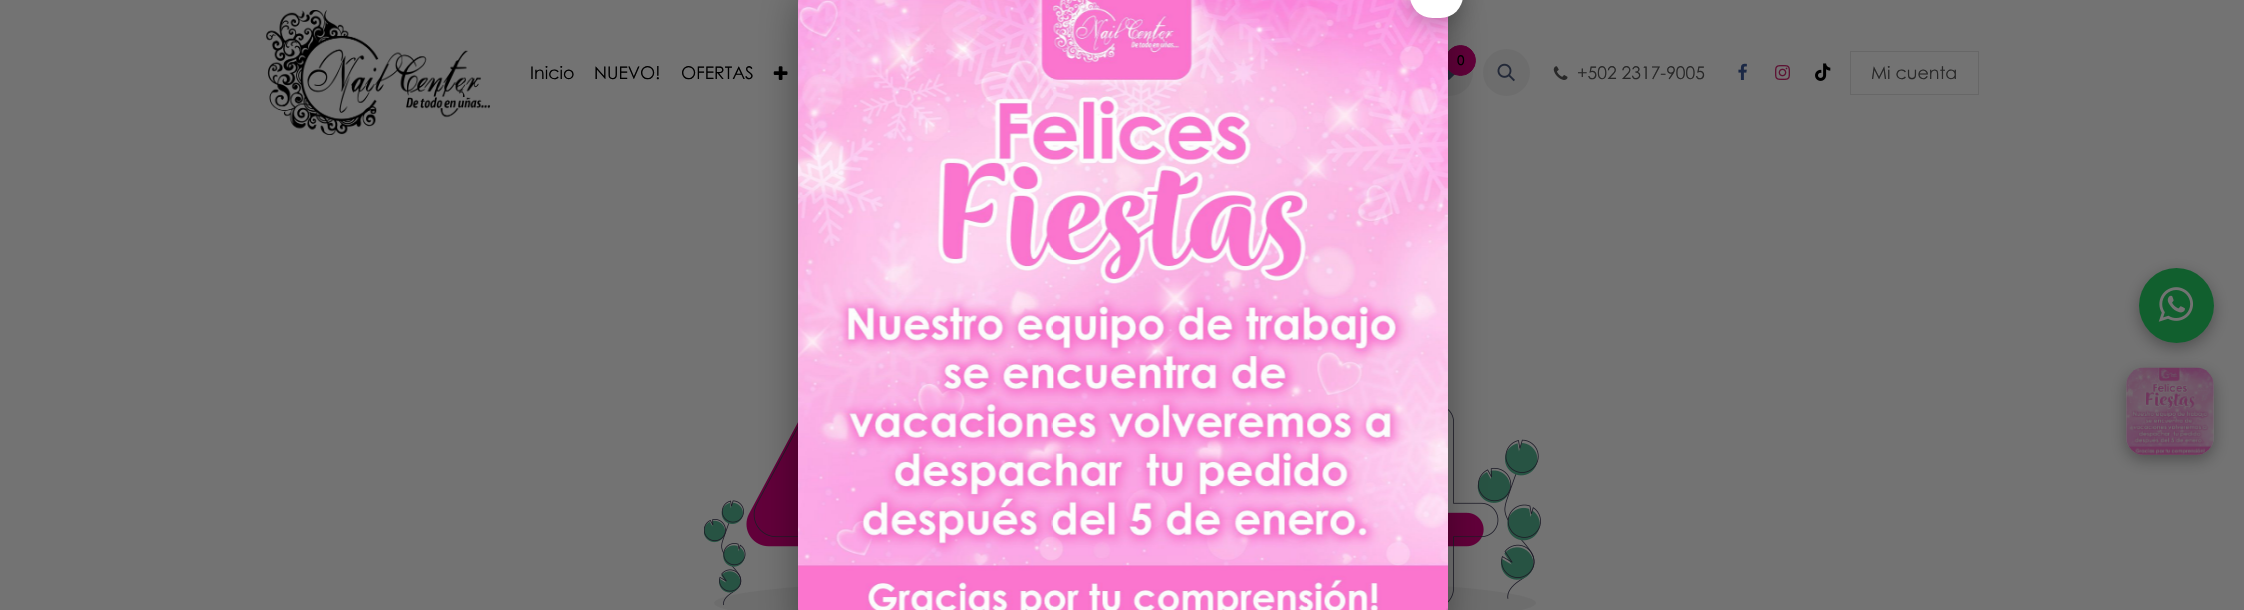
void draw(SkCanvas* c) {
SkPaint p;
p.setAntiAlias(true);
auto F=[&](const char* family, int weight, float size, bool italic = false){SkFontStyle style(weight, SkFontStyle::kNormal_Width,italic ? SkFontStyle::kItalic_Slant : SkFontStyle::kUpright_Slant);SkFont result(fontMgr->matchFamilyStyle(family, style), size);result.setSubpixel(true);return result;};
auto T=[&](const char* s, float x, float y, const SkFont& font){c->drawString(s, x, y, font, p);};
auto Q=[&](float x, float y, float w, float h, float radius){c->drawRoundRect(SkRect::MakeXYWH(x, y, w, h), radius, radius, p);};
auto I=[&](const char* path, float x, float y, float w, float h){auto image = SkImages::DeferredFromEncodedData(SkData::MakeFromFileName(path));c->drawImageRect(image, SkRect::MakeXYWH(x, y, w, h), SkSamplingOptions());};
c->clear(0xff737373);
I("3.png",773,66,15,14);
p.setColor(0xff6d6d6d);
Q(1425,49,48,47,23.5);
I("4.png",1448,69,7,11);
p.setColor(0xff62003a);
c->drawCircle(1460.5,60.5,15,p);
p.setStroke(true);
p.setStrokeWidth(1);
c->drawCircle(1460.5,60.5,15,p);
p.setStroke(false);
p.setColor(0xff6d6d6d);
c->drawCircle(1506.5,72.5,23.5,p);
I("5.png",1497,63,18,19);
I("10.png",704,409,837,201);
p.setColor(0x59000000);
p.setMaskFilter(SkMaskFilter::MakeBlur(kNormal_SkBlurStyle, 19));
c->drawRoundRect(SkRect::MakeXYWH(798,-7,650,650),23,23,p);
p.setMaskFilter(nullptr);
I("1.png",798,0,650,610);
p.setColor(0x40000000);
p.setMaskFilter(SkMaskFilter::MakeBlur(kNormal_SkBlurStyle, 11));
c->drawRoundRect(SkRect::MakeXYWH(1410,-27,53,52),26,26,p);
p.setMaskFilter(nullptr);
p.setColor(0xffffffff);
Q(1410,-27,53,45,26.5);
I("2.png",266,10,224,125);
auto f1 = F("Century Gothic",400,17.5);
p.setColor(0xff000000);
T("Inicio",530,79,f1);
T("NUEVO!",594,79,f1);
T("OFERTAS",681,79,f1);
auto f2 = F("Century Gothic",700,13);
T("0",1457,65,f2);
I("6.png",1553,66,15,14);
p.setColor(0xff282828);
T("+502 2317-9005",1577,79,f1);
I("7.png",1738,63,9,17);
I("8.png",1775,65,15,15);
I("9.png",1815,63,16,18);
p.setStroke(true);
p.setColor(0xff676767);
c->drawRect(SkRect::MakeXYWH(1850.5,51.5,128,43),p);
p.setStroke(false);
p.setColor(0xff282828);
T("Mi cuenta",1871,79,f1);
p.setColor(0x4d000000);
p.setMaskFilter(SkMaskFilter::MakeBlur(kNormal_SkBlurStyle, 7.5));
c->drawRoundRect(SkRect::MakeXYWH(2139,273,75,75),37.5,37.5,p);
p.setMaskFilter(nullptr);
p.setColor(0xff115f2e);
c->drawCircle(2176.5,305.5,37.5,p);
I("11.png",2158,287,35,35);
p.setColor(0x4d000000);
p.setMaskFilter(SkMaskFilter::MakeBlur(kNormal_SkBlurStyle, 7.5));
c->drawRoundRect(SkRect::MakeXYWH(2126,373,88,87),18,18,p);
p.setMaskFilter(nullptr);
p.setColor(0xff737373);
Q(2126,368,88,87,18);
I("12.png",2126,367,88,88);
}
